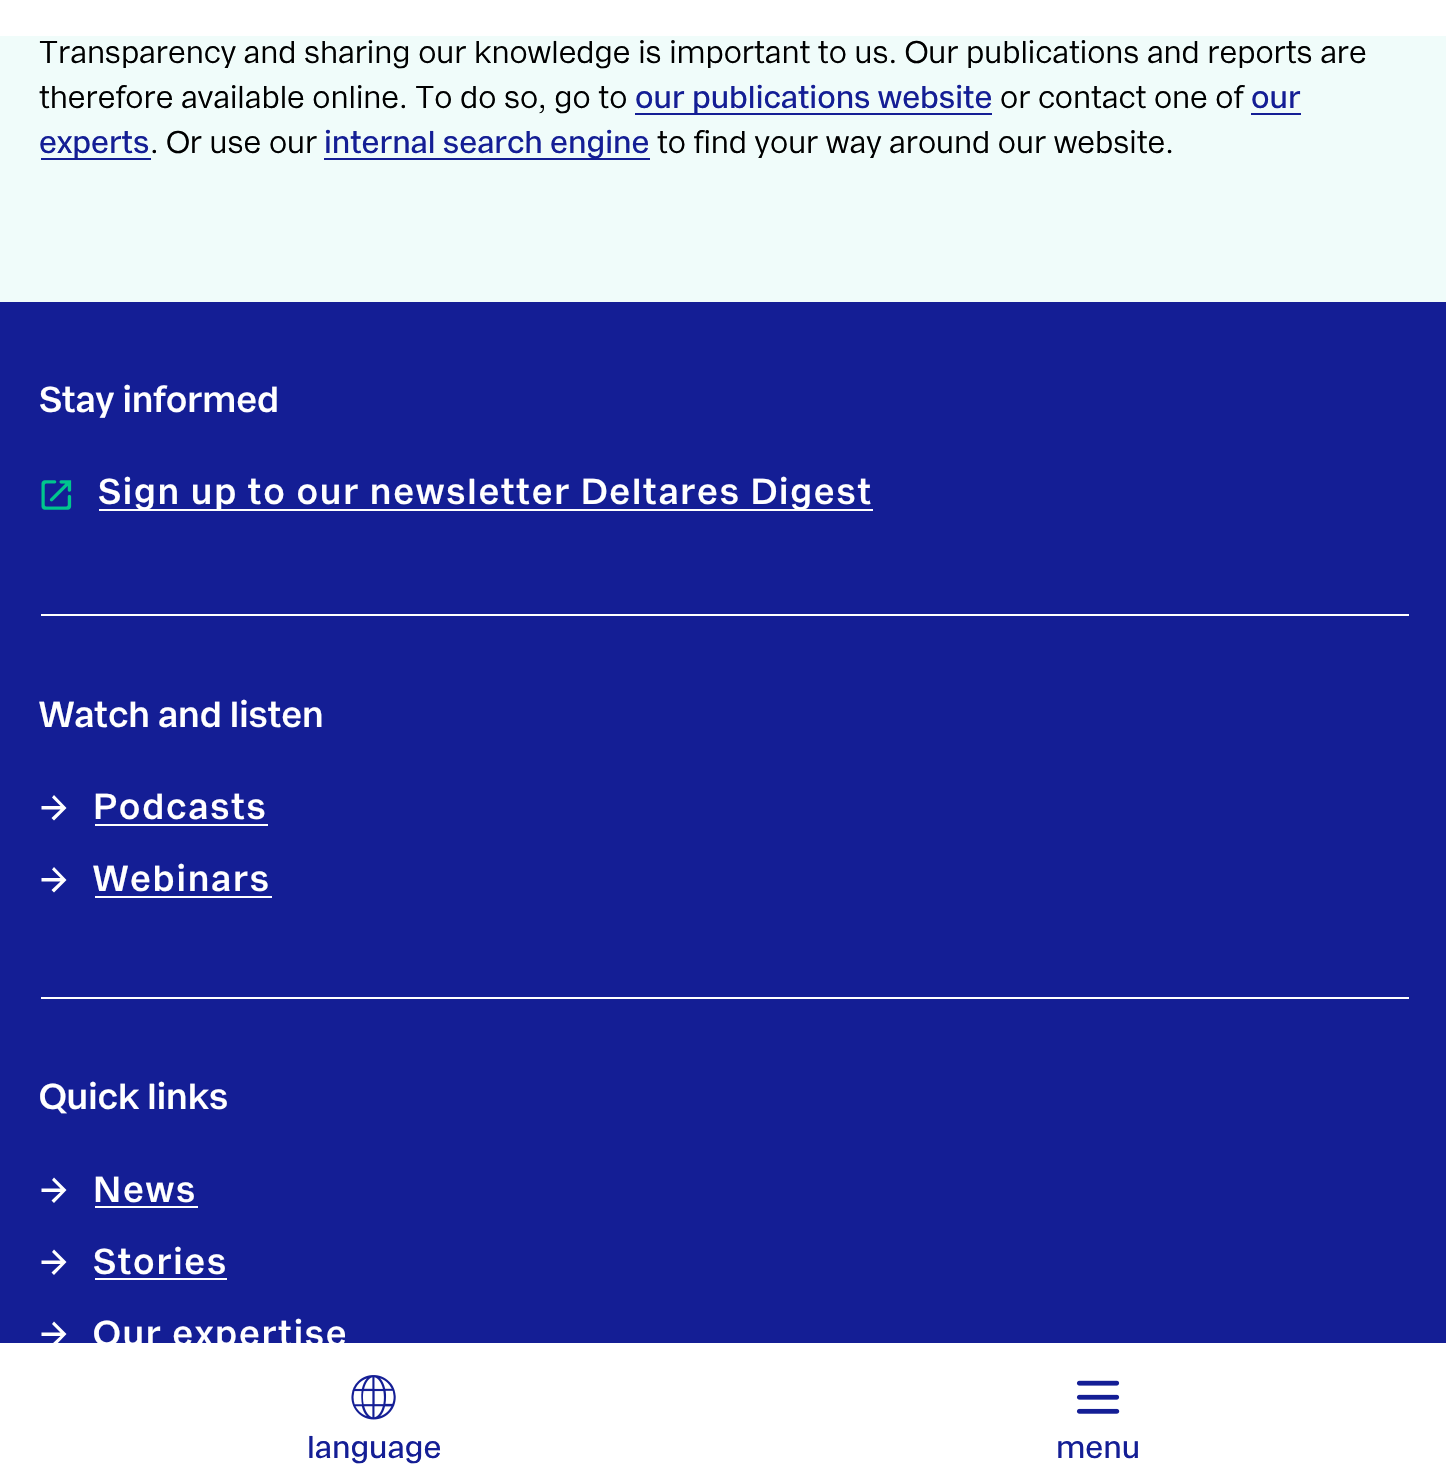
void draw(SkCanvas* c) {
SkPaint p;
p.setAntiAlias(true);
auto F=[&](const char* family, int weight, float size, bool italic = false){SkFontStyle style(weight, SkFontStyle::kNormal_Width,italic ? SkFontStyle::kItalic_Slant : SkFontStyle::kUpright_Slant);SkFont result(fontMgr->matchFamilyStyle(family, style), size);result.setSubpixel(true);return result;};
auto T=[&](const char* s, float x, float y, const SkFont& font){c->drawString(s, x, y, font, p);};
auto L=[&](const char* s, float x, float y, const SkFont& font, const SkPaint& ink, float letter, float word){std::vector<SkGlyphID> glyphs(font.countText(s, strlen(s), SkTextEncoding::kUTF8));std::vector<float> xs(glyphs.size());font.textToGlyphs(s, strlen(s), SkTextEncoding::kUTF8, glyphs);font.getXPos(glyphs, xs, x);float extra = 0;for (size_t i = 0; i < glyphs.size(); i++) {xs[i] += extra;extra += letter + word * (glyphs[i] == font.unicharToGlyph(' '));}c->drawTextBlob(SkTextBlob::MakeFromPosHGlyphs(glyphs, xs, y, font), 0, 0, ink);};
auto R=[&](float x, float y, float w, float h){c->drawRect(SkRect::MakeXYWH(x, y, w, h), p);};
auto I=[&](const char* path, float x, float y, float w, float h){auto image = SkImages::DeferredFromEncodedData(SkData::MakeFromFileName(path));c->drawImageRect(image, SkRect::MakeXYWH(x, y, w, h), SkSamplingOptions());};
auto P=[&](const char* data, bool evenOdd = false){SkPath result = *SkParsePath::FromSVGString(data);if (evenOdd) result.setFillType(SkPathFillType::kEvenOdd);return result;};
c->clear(0xfff0fcfa);
auto f1 = F("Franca",400,31.5);
p.setColor(0xff000000);
T("Transparency and sharing our knowledge is important to us. Our publications and reports are",39,63,f1);
T("therefore available online. To do so, go to",39,108,f1);
p.setColor(0xff141e95);
R(635,113,357,2);
auto f2 = F("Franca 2",400,31.5);
T("our publications website",635,108,f2);
p.setColor(0xff000000);
T("or contact one of",1000,108,f1);
p.setColor(0xff141e95);
T("our",1251,108,f2);
R(1251,113,50,2);
R(41,158,110,2);
T("experts",39,153,f2);
p.setColor(0xff000000);
T(". Or use our",150,153,f1);
p.setColor(0xff141e95);
R(324,158,326,2);
T("internal search engine",324,153,f2);
p.setColor(0xff000000);
T("to find your way around our website.",657,153,f1);
p.setColor(0xff141e95);
R(0,302,1446,1041);
auto f3 = F("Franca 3",400,36);
p.setColor(0xffffffff);
T("Stay informed",39,412,f3);
I("1.png",41,480,31,30);
R(99,509,774,2);
L("Sign up to our newsletter Deltares Digest",98,504,f3,p,1.8,0);
R(41,614,1368,2);
T("Watch and listen",39,727,f3);
c->drawPath(P("M41.5 809.5h19l-9 8.5l2.5 2.5l12.5-12.5l-12.5-13l-2 2.5l8.5 8.5h-19z"),p);
L("Podcasts",93,819,f3,p,1.8,0);
R(95,824,173,2);
c->drawPath(P("M41.5 881.5h19l-9 8.5l2.5 2.5l12.5-12.5l-12.5-13l-2 2.5l8.5 8.5h-19z"),p);
L("Webinars",93,891,f3,p,1.8,0);
R(95,896,177,2);
R(41,997,1368,2);
T("Quick links",39,1109,f3);
c->drawPath(P("M41.5 1192h19l-9 8.5l2.5 2.5l12.5-13l-12.5-12.5l-2 2.5l8.5 8.5h-19z"),p);
L("News",93,1202,f3,p,1.8,0);
R(95,1206,103,2);
c->drawPath(P("M41.5 1264h19l-9 8.5l2.5 2.5l12.5-13l-12.5-12.5l-2 2.5l8.5 8.5h-19z"),p);
L("Stories",93,1274,f3,p,1.8,0);
R(95,1278,132,2);
c->drawPath(P("M41.5 1336h19l-9 8.5l2.5 2.5l12.5-13l-12.5-12.5l-2 2.5l8.5 8.5h-19z"),p);
L("Our expertise",93,1346,f3,p,1.8,0);
R(0,0,1446,36);
R(0,1343,1446,130);
I("2.png",351,1375,45,45);
p.setColor(0xff141e95);
T("language",307,1458,f2);
I("3.png",1076,1380,44,34);
T("menu",1056,1458,f2);
}
